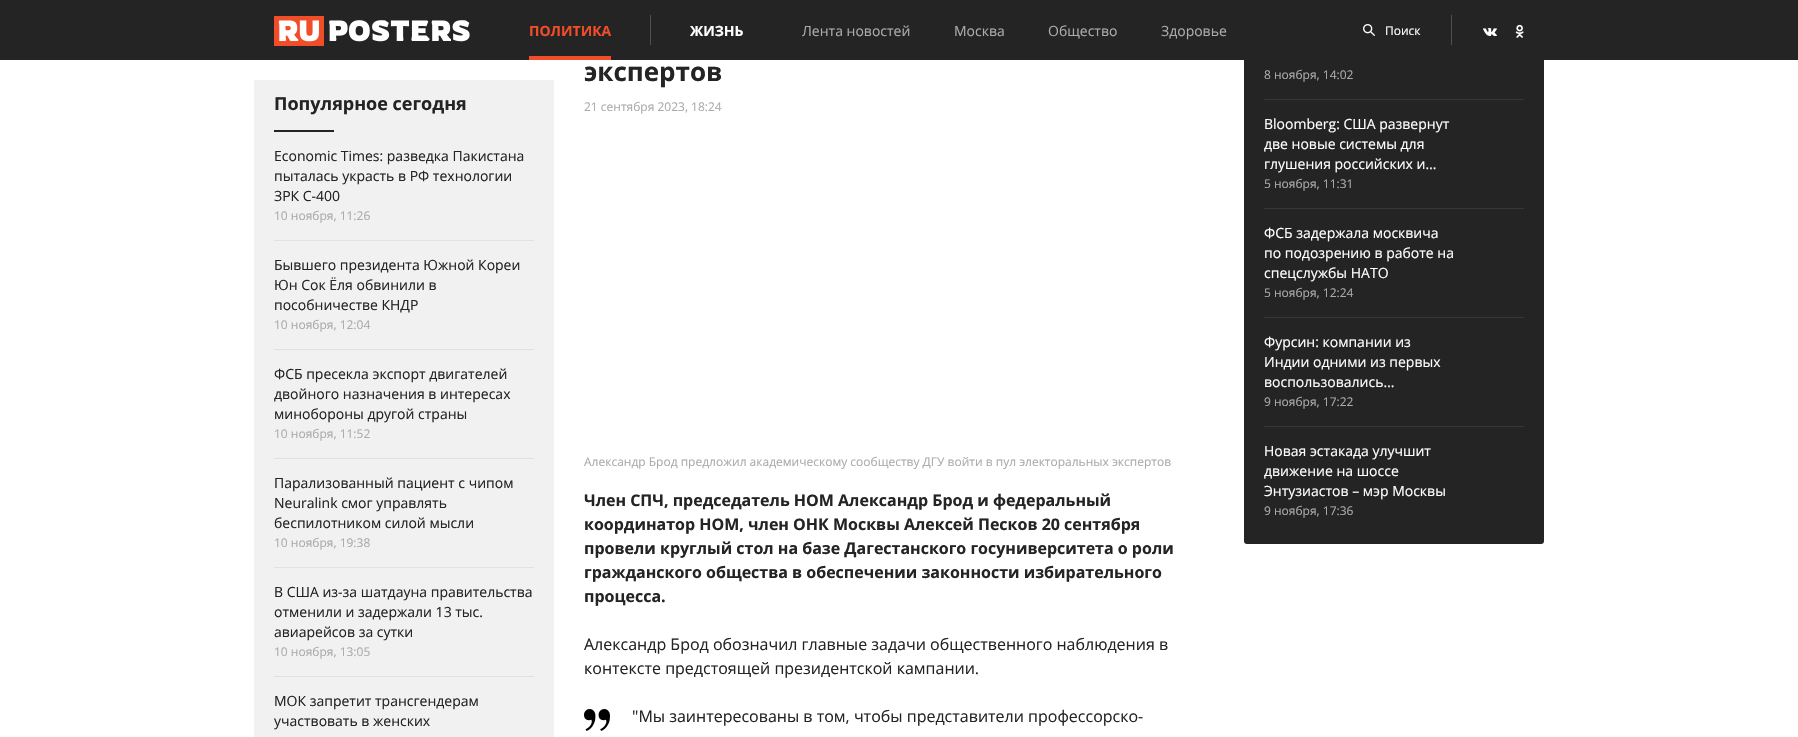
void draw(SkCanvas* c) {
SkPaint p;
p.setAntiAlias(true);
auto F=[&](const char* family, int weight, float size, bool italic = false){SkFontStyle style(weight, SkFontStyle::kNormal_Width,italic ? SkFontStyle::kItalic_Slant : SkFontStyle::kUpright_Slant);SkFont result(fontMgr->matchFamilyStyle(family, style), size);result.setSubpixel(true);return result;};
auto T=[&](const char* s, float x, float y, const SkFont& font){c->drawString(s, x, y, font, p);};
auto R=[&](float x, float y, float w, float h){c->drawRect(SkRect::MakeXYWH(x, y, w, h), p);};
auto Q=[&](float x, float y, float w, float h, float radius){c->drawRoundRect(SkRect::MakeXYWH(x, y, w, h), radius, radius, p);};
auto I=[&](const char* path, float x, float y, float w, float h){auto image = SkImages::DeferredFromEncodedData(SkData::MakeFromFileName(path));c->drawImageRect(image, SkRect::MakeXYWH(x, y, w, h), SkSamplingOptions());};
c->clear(0xffffffff);
p.setColor(0xff242424);
Q(1244,-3,300,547,3);
R(0,0,1798,60);
I("1.png",274,16,196,30);
auto f1 = F("Open Sans",700,14);
p.setColor(0xfff14d29);
T("ПОЛИТИКА",529,36,f1);
R(529,56,82,4);
p.setColor(0xff505050);
R(650,15,1,30);
p.setColor(0xffffffff);
T("ЖИЗНЬ",690,36,f1);
auto f2 = F("Open Sans",400,14);
p.setColor(0xffababab);
T("Лента новостей",802,36,f2);
T("Москва",954,36,f2);
T("Общество",1048,36,f2);
T("Здоровье",1161,36,f2);
p.setColor(0xff505050);
R(1451,15,1,30);
I("2.png",1363,24,12,12);
auto f3 = F("Open Sans",400,12);
p.setColor(0xffffffff);
T("Поиск",1385,35,f3);
I("3.png",1483,28,14,8);
I("4.png",1515,24,9,14);
p.setColor(0xfff1f1f1);
R(254,80,300,657);
auto f4 = F("Open Sans",700,18);
p.setColor(0xff242424);
T("Популярное сегодня",274,110,f4);
R(274,130,60,2);
p.setColor(0xffe1e1e1);
R(274,240,260,1);
p.setColor(0xff242424);
T("Economic Times: разведка Пакистана",274,161,f2);
T("пыталась украсть в РФ технологии",274,181,f2);
T("ЗРК С-400",274,201,f2);
p.setColor(0xffababab);
T("10 ноября, 11:26",274,220,f3);
p.setColor(0xffe1e1e1);
R(274,349,260,1);
p.setColor(0xff242424);
T("Бывшего президента Южной Кореи",274,270,f2);
T("Юн Сок Ёля обвинили в",274,290,f2);
T("пособничестве КНДР",274,310,f2);
p.setColor(0xffababab);
T("10 ноября, 12:04",274,329,f3);
p.setColor(0xffe1e1e1);
R(274,458,260,1);
p.setColor(0xff242424);
T("ФСБ пресекла экспорт двигателей",274,379,f2);
T("двойного назначения в интересах",274,399,f2);
T("минобороны другой страны",274,419,f2);
p.setColor(0xffababab);
T("10 ноября, 11:52",274,438,f3);
p.setColor(0xffe1e1e1);
R(274,567,260,1);
p.setColor(0xff242424);
T("Парализованный пациент с чипом",274,488,f2);
T("Neuralink смог управлять",274,508,f2);
T("беспилотником силой мысли",274,528,f2);
p.setColor(0xffababab);
T("10 ноября, 19:38",274,547,f3);
p.setColor(0xffe1e1e1);
R(274,676,260,1);
p.setColor(0xff242424);
T("В США из-за шатдауна правительства",274,597,f2);
T("отменили и задержали 13 тыс.",274,617,f2);
T("авиарейсов за сутки",274,637,f2);
p.setColor(0xffababab);
T("10 ноября, 13:05",274,656,f3);
p.setColor(0xff242424);
T("МОК запретит трансгендерам",274,706,f2);
T("участвовать в женских",274,726,f2);
auto f5 = F("Open Sans",700,26);
T("экспертов",584,81,f5);
p.setColor(0xffababab);
T("21 сентября 2023, 18:24",584,111,f3);
T("Александр Брод предложил академическому сообществу ДГУ войти в пул электоральных экспертов",584,466,f3);
auto f6 = F("Open Sans",700,16);
p.setColor(0xff242424);
T("Член СПЧ, председатель НОМ Александр Брод и федеральный",584,506,f6);
T("координатор НОМ, член ОНК Москвы Алексей Песков 20 сентября",584,530,f6);
T("провели круглый стол на базе Дагестанского госуниверситета о роли",584,554,f6);
T("гражданского общества в обеспечении законности избирательного",584,578,f6);
T("процесса.",584,602,f6);
auto f7 = F("Open Sans",400,16);
T("Александр Брод обозначил главные задачи общественного наблюдения в",584,650,f7);
T("контексте предстоящей президентской кампании.",584,674,f7);
I("5.png",584,709,26,22);
T("\"Мы заинтересованы в том, чтобы представители профессорско-",632,722,f7);
p.setColor(0xff373737);
R(1264,99,260,1);
p.setColor(0xffababab);
T("8 ноября, 14:02",1264,79,f3);
p.setColor(0xff373737);
R(1264,208,260,1);
p.setColor(0xffffffff);
T("Bloomberg: США развернут",1264,129,f2);
T("две новые системы для",1264,149,f2);
T("глушения российских и…",1264,169,f2);
p.setColor(0xffababab);
T("5 ноября, 11:31",1264,188,f3);
p.setColor(0xff373737);
R(1264,317,260,1);
p.setColor(0xffffffff);
T("ФСБ задержала москвича",1264,238,f2);
T("по подозрению в работе на",1264,258,f2);
T("спецслужбы НАТО",1264,278,f2);
p.setColor(0xffababab);
T("5 ноября, 12:24",1264,297,f3);
p.setColor(0xff373737);
R(1264,426,260,1);
p.setColor(0xffffffff);
T("Фурсин: компании из",1264,347,f2);
T("Индии одними из первых",1264,367,f2);
T("воспользовались…",1264,387,f2);
p.setColor(0xffababab);
T("9 ноября, 17:22",1264,406,f3);
p.setColor(0xffffffff);
T("Новая эстакада улучшит",1264,456,f2);
T("движение на шоссе",1264,476,f2);
T("Энтузиастов – мэр Москвы",1264,496,f2);
p.setColor(0xffababab);
T("9 ноября, 17:36",1264,515,f3);
}
